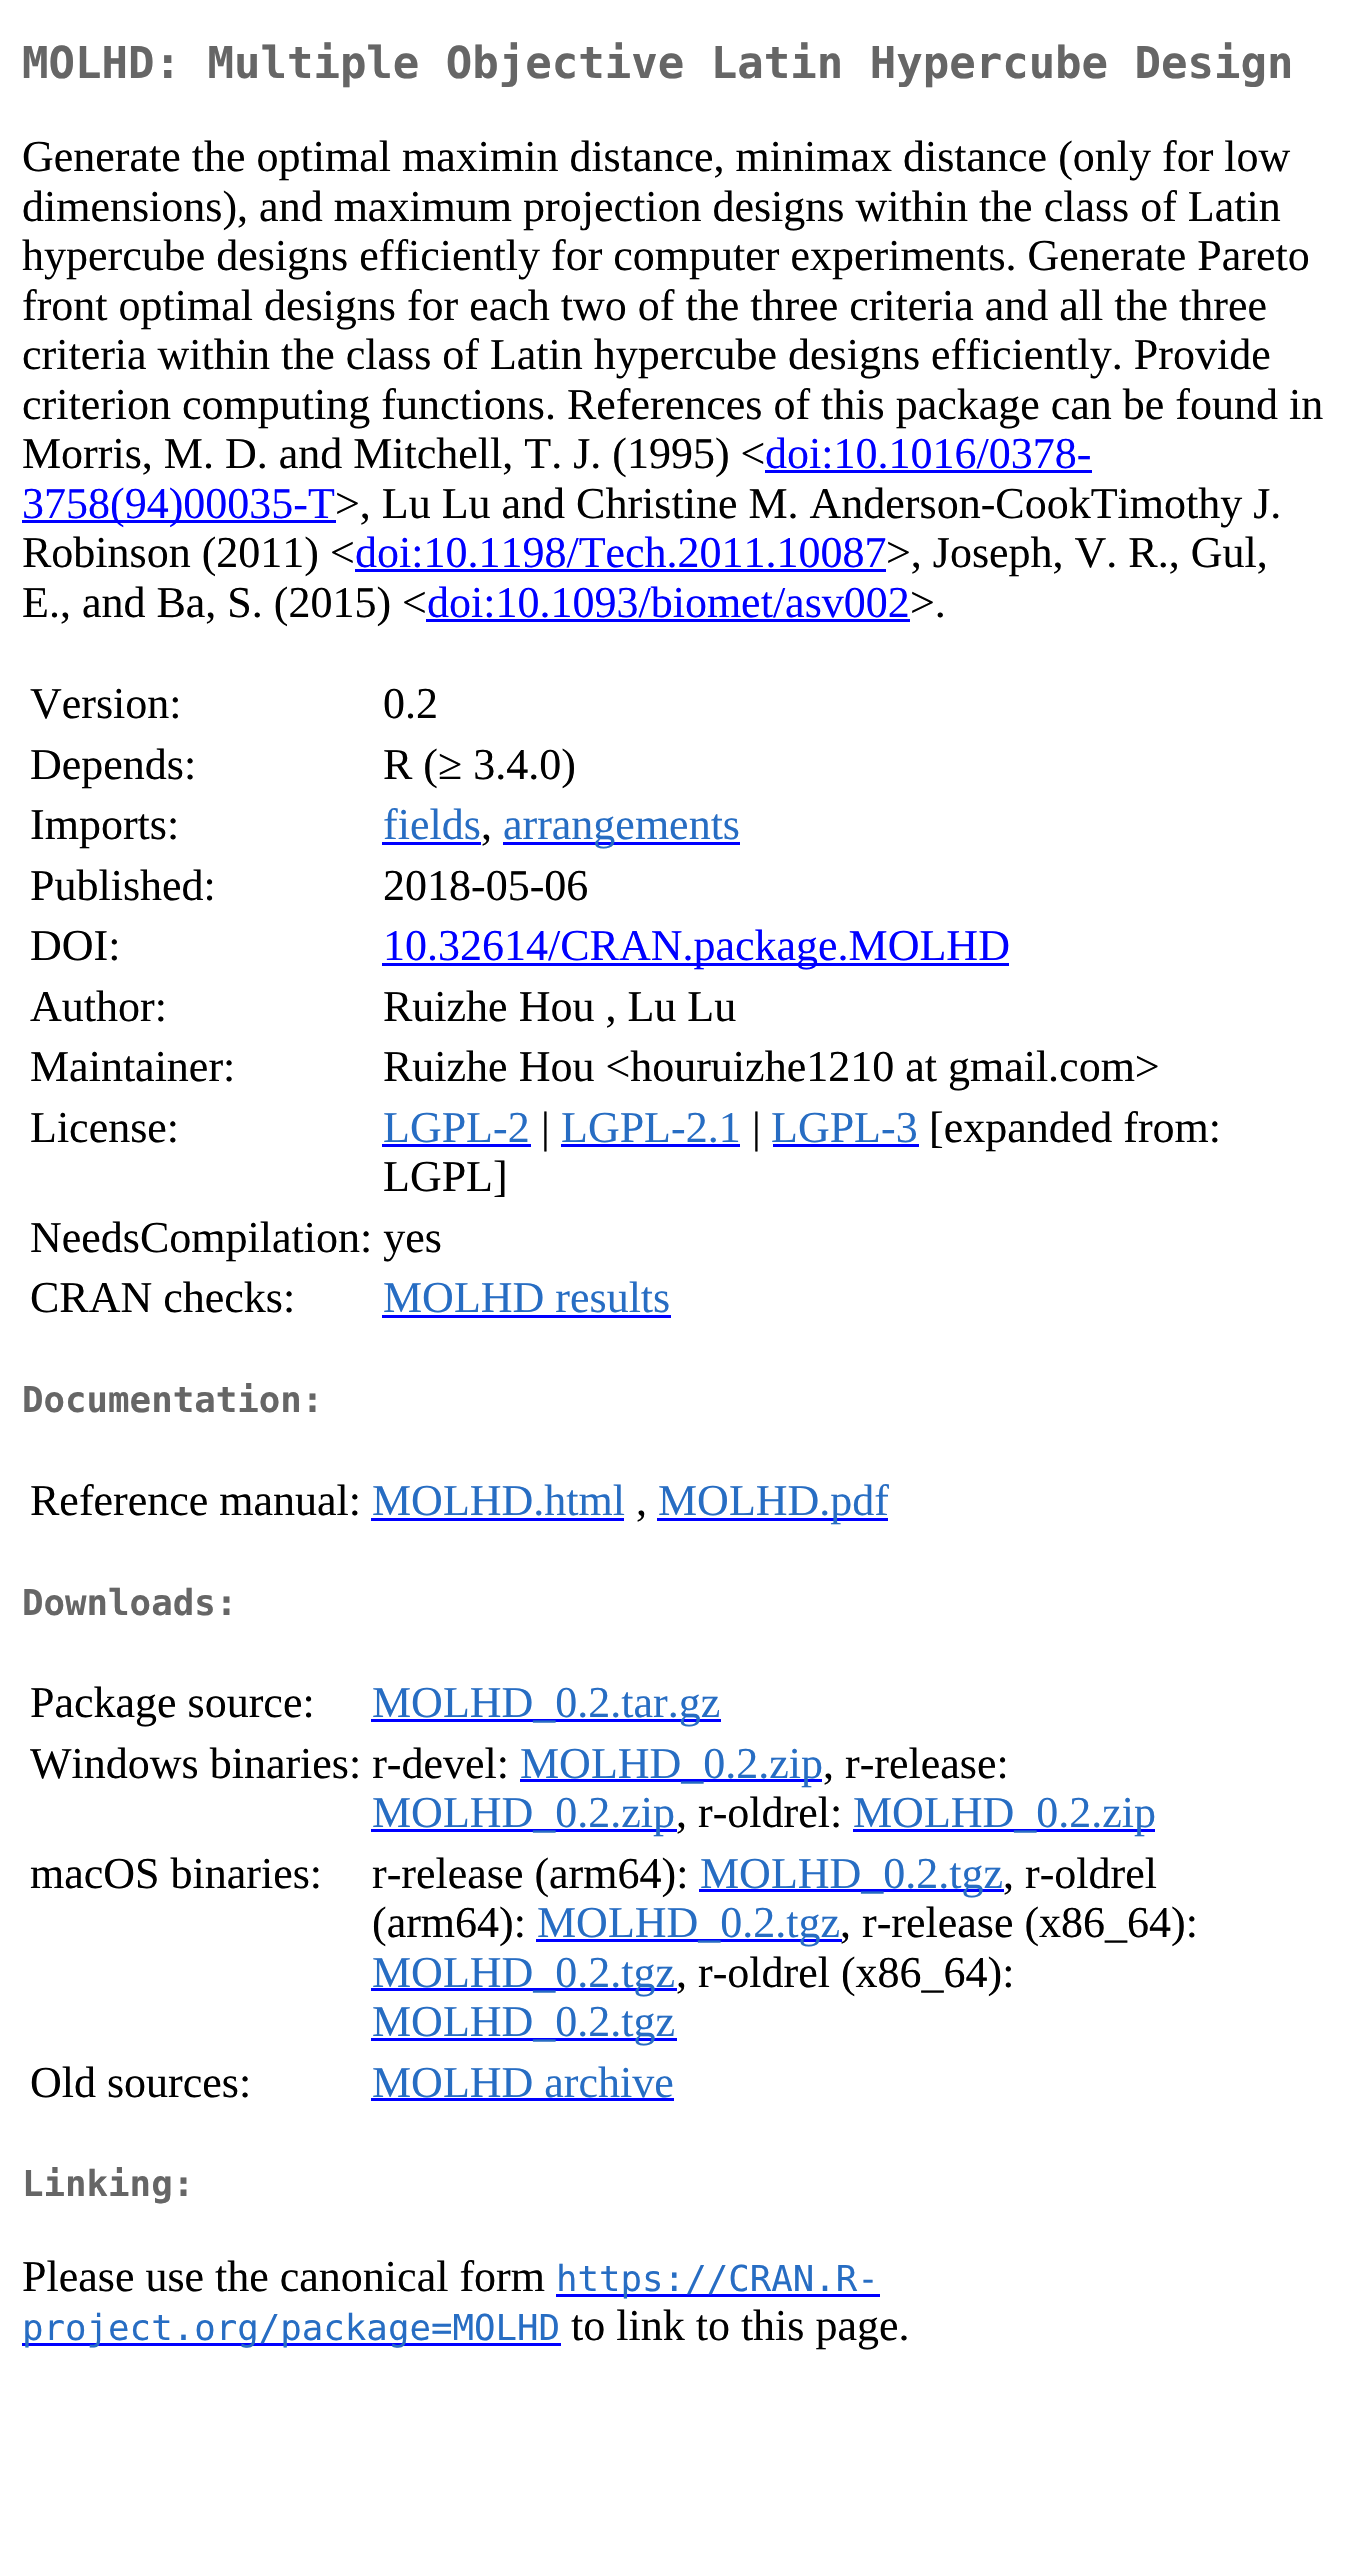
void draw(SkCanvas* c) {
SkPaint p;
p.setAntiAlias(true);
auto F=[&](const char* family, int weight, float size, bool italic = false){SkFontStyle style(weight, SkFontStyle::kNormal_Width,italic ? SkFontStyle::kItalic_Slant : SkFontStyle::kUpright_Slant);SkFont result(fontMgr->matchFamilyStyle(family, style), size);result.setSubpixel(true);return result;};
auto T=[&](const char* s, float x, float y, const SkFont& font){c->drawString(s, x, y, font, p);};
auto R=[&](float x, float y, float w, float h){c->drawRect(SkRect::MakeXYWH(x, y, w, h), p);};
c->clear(0xffffffff);
auto f1 = F("DejaVu Sans Mono",700,44);
p.setColor(0xff666666);
T("MOLHD: Multiple Objective Latin Hypercube Design",22,78,f1);
auto f2 = F("Liberation Serif",400,44);
p.setColor(0xff000000);
T("Generate the optimal maximin distance, minimax distance (only for low",22,171,f2);
T("dimensions), and maximum projection designs within the class of Latin",22,221,f2);
T("hypercube designs efficiently for computer experiments. Generate Pareto",22,270,f2);
T("front optimal designs for each two of the three criteria and all the three",22,320,f2);
T("criteria within the class of Latin hypercube designs efficiently. Provide",22,369,f2);
T("criterion computing functions. References of this package can be found in",22,419,f2);
T("Morris, M. D. and Mitchell, T. J. (1995) <",22,468,f2);
p.setColor(0xff0000ff);
T("doi:10.1016/0378-",765,468,f2);
R(765,470,327,3);
R(22,520,314,3);
T("3758(94)00035-T",22,518,f2);
p.setColor(0xff000000);
T(">, Lu Lu and Christine M. Anderson-CookTimothy J.",335,518,f2);
T("Robinson (2011) <",22,567,f2);
p.setColor(0xff0000ff);
T("doi:10.1198/Tech.2011.10087",355,567,f2);
R(355,569,531,3);
p.setColor(0xff000000);
T(">, Joseph, V. R., Gul,",886,567,f2);
T("E., and Ba, S. (2015) <",22,617,f2);
p.setColor(0xff0000ff);
T("doi:10.1093/biomet/asv002",427,617,f2);
R(426,619,484,3);
p.setColor(0xff000000);
T(">.",910,617,f2);
T("Version:",30,718,f2);
T("0.2",383,718,f2);
T("Depends:",30,779,f2);
T("R (≥ 3.4.0)",383,779,f2);
T("Imports:",30,839,f2);
p.setColor(0xff276dc3);
T("fields",383,839,f2);
p.setColor(0xff0000ff);
R(382,842,99,3);
p.setColor(0xff000000);
T(",",481,839,f2);
p.setColor(0xff0000ff);
R(503,842,237,3);
p.setColor(0xff276dc3);
T("arrangements",503,839,f2);
p.setColor(0xff000000);
T("Published:",30,900,f2);
T("2018-05-06",383,900,f2);
T("DOI:",30,960,f2);
p.setColor(0xff0000ff);
R(382,963,627,3);
T("10.32614/CRAN.package.MOLHD",383,960,f2);
p.setColor(0xff000000);
T("Author:",30,1021,f2);
T("Ruizhe Hou , Lu Lu",383,1021,f2);
T("Maintainer:",30,1081,f2);
T("Ruizhe Hou <houruizhe1210 at gmail.com>",383,1081,f2);
T("License:",30,1142,f2);
p.setColor(0xff276dc3);
T("LGPL-2",383,1142,f2);
p.setColor(0xff0000ff);
R(382,1144,149,3);
p.setColor(0xff000000);
T("|",541,1142,f2);
p.setColor(0xff276dc3);
T("LGPL-2.1",561,1142,f2);
p.setColor(0xff0000ff);
R(561,1144,179,3);
p.setColor(0xff000000);
T("|",752,1142,f2);
p.setColor(0xff276dc3);
T("LGPL-3",771,1142,f2);
p.setColor(0xff0000ff);
R(773,1144,146,3);
p.setColor(0xff000000);
T("[expanded from:",929,1142,f2);
T("LGPL]",383,1191,f2);
T("NeedsCompilation: yes",30,1252,f2);
T("CRAN checks:",30,1312,f2);
p.setColor(0xff276dc3);
T("MOLHD results",383,1312,f2);
p.setColor(0xff0000ff);
R(382,1315,289,3);
auto f3 = F("DejaVu Sans Mono",700,35.75);
p.setColor(0xff666666);
T("Documentation:",22,1412,f3);
p.setColor(0xff000000);
T("Reference manual:",30,1515,f2);
p.setColor(0xff276dc3);
T("MOLHD.html",372,1515,f2);
p.setColor(0xff0000ff);
R(371,1518,253,3);
p.setColor(0xff000000);
T(",",636,1515,f2);
p.setColor(0xff0000ff);
R(657,1518,231,3);
p.setColor(0xff276dc3);
T("MOLHD.pdf",658,1515,f2);
p.setColor(0xff666666);
T("Downloads:",22,1615,f3);
p.setColor(0xff000000);
T("Package source:",30,1717,f2);
p.setColor(0xff0000ff);
R(371,1719,350,3);
p.setColor(0xff276dc3);
T("MOLHD_0.2.tar.gz",372,1717,f2);
p.setColor(0xff000000);
T("Windows binaries: r-devel:",30,1778,f2);
p.setColor(0xff0000ff);
R(520,1779,302,3);
p.setColor(0xff276dc3);
T("MOLHD_0.2.zip",520,1778,f2);
p.setColor(0xff000000);
T(", r-release:",823,1778,f2);
p.setColor(0xff0000ff);
R(371,1829,306,3);
p.setColor(0xff276dc3);
T("MOLHD_0.2.zip",372,1827,f2);
p.setColor(0xff000000);
T(", r-oldrel:",676,1827,f2);
p.setColor(0xff0000ff);
R(853,1829,302,3);
p.setColor(0xff276dc3);
T("MOLHD_0.2.zip",853,1827,f2);
p.setColor(0xff000000);
T("macOS binaries:",30,1888,f2);
T("r-release (arm64):",372,1888,f2);
p.setColor(0xff0000ff);
R(699,1889,305,3);
p.setColor(0xff276dc3);
T("MOLHD_0.2.tgz",700,1888,f2);
p.setColor(0xff000000);
T(", r-oldrel",1003,1888,f2);
T("(arm64):",372,1937,f2);
p.setColor(0xff0000ff);
R(536,1939,306,3);
p.setColor(0xff276dc3);
T("MOLHD_0.2.tgz",537,1937,f2);
p.setColor(0xff000000);
T(", r-release (x86_64):",840,1937,f2);
p.setColor(0xff0000ff);
R(371,1988,306,3);
p.setColor(0xff276dc3);
T("MOLHD_0.2.tgz",372,1987,f2);
p.setColor(0xff000000);
T(", r-oldrel (x86_64):",676,1987,f2);
p.setColor(0xff0000ff);
R(371,2038,306,3);
p.setColor(0xff276dc3);
T("MOLHD_0.2.tgz",372,2036,f2);
p.setColor(0xff000000);
T("Old sources:",30,2097,f2);
p.setColor(0xff276dc3);
T("MOLHD archive",372,2097,f2);
p.setColor(0xff0000ff);
R(371,2098,303,3);
p.setColor(0xff666666);
T("Linking:",22,2196,f3);
p.setColor(0xff000000);
T("Please use the canonical form",22,2291,f2);
p.setColor(0xff0000ff);
R(556,2294,324,3);
auto f4 = F("DejaVu Sans Mono",400,35.75);
p.setColor(0xff276dc3);
T("https://CRAN.R-",556,2291,f4);
p.setColor(0xff0000ff);
R(22,2343,539,3);
p.setColor(0xff276dc3);
T("project.org/package=MOLHD",22,2340,f4);
p.setColor(0xff000000);
T("to link to this page.",571,2340,f2);
}
